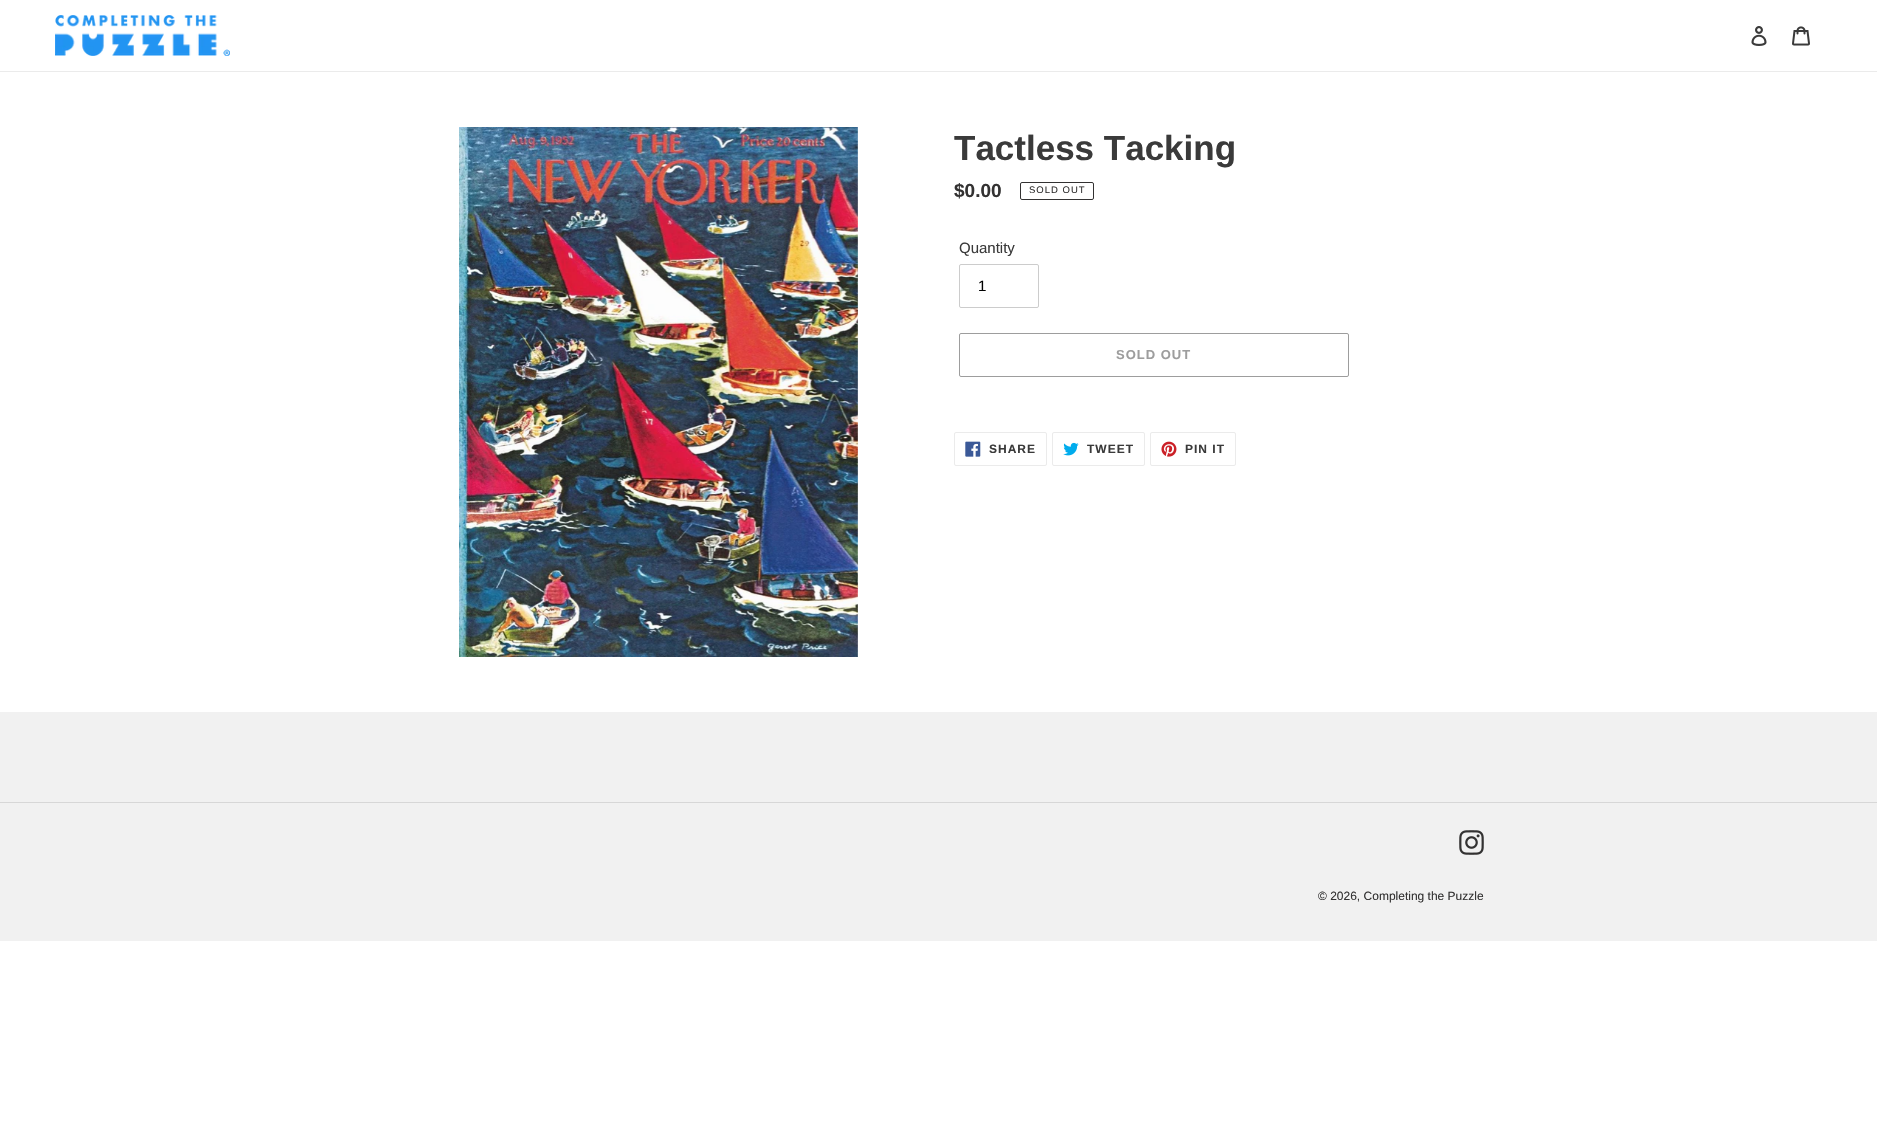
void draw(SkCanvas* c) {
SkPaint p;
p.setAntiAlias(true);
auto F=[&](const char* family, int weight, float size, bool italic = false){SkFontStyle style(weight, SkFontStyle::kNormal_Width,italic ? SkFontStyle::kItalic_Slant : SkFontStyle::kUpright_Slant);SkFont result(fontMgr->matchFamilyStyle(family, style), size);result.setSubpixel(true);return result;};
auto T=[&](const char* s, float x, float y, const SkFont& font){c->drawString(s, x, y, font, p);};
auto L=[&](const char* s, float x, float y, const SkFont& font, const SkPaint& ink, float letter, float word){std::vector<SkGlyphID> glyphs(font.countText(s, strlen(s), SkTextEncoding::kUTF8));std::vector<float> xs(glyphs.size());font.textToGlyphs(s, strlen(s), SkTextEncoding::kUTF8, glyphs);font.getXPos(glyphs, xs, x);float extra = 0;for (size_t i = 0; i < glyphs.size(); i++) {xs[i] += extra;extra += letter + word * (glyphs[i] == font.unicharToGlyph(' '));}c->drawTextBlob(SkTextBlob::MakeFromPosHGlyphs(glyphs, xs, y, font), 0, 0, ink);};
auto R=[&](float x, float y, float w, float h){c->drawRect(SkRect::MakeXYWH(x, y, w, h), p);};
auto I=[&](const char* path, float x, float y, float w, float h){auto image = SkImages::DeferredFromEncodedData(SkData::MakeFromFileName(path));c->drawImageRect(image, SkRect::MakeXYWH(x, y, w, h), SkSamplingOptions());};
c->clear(0xffffffff);
p.setColor(0xffebebeb);
R(0,71,1877,1);
I("1.png",55,15,175,41);
I("2.png",1751,26,16,20);
I("3.png",1792,26,18,20);
I("4.png",459,127,399,530);
auto f1 = F("Liberation Sans",700,35);
p.setColor(0xff3a3a3a);
T("Tactless Tacking",954,160,f1);
auto f2 = F("Liberation Sans",700,19);
p.setColor(0xff333232);
T("$0.00",954,197,f2);
p.setStroke(true);
p.setStrokeWidth(1);
c->drawRoundRect(SkRect::MakeXYWH(1020.5,182.5,73,17),1.5,1.5,p);
auto f3 = F("Liberation Sans",400,9.5);
p.setStroke(false);
L("SOLD OUT",1029,193,f3,p,1,0);
auto f4 = F("Liberation Sans",400,15);
p.setColor(0xff3a3a3a);
T("Quantity",959,253,f4);
p.setStroke(true);
p.setColor(0xffcccccc);
c->drawRoundRect(SkRect::MakeXYWH(959.5,264.5,79,43),1.5,1.5,p);
p.setStroke(false);
p.setColor(0xff000000);
T("1",978,291,f4);
p.setStroke(true);
p.setColor(0xff9d9d9d);
c->drawRoundRect(SkRect::MakeXYWH(959.5,333.5,389,43),1.5,1.5,p);
auto f5 = F("Liberation Sans",700,13);
p.setStroke(false);
L("SOLD OUT",1116,359,f5,p,1,0);
p.setStroke(true);
p.setColor(0xffebebeb);
c->drawRoundRect(SkRect::MakeXYWH(954.5,432.5,92,33),1.5,1.5,p);
I("5.png",965,441,16,16);
auto f6 = F("Liberation Sans",700,12);
p.setStroke(false);
p.setColor(0xff3a3a3a);
L("SHARE",989,453,f6,p,1,0);
p.setStroke(true);
p.setColor(0xffebebeb);
c->drawRoundRect(SkRect::MakeXYWH(1052.5,432.5,92,33),1.5,1.5,p);
I("6.png",1063,442,16,14);
p.setStroke(false);
p.setColor(0xff3a3a3a);
L("TWEET",1087,453,f6,p,1,0);
p.setStroke(true);
p.setColor(0xffebebeb);
c->drawRoundRect(SkRect::MakeXYWH(1150.5,432.5,85,33),1.5,1.5,p);
I("7.png",1161,441,16,16);
p.setStroke(false);
p.setColor(0xff3a3a3a);
L("PIN IT",1185,453,f6,p,1,0);
p.setColor(0xfff1f1f1);
R(0,712,1877,229);
p.setColor(0xffd7d7d7);
R(0,802,1877,1);
I("8.png",1459,830,25,25);
auto f7 = F("Liberation Sans",400,12);
p.setColor(0xff333232);
T("© 2026, Completing the Puzzle",1318,900,f7);
}
